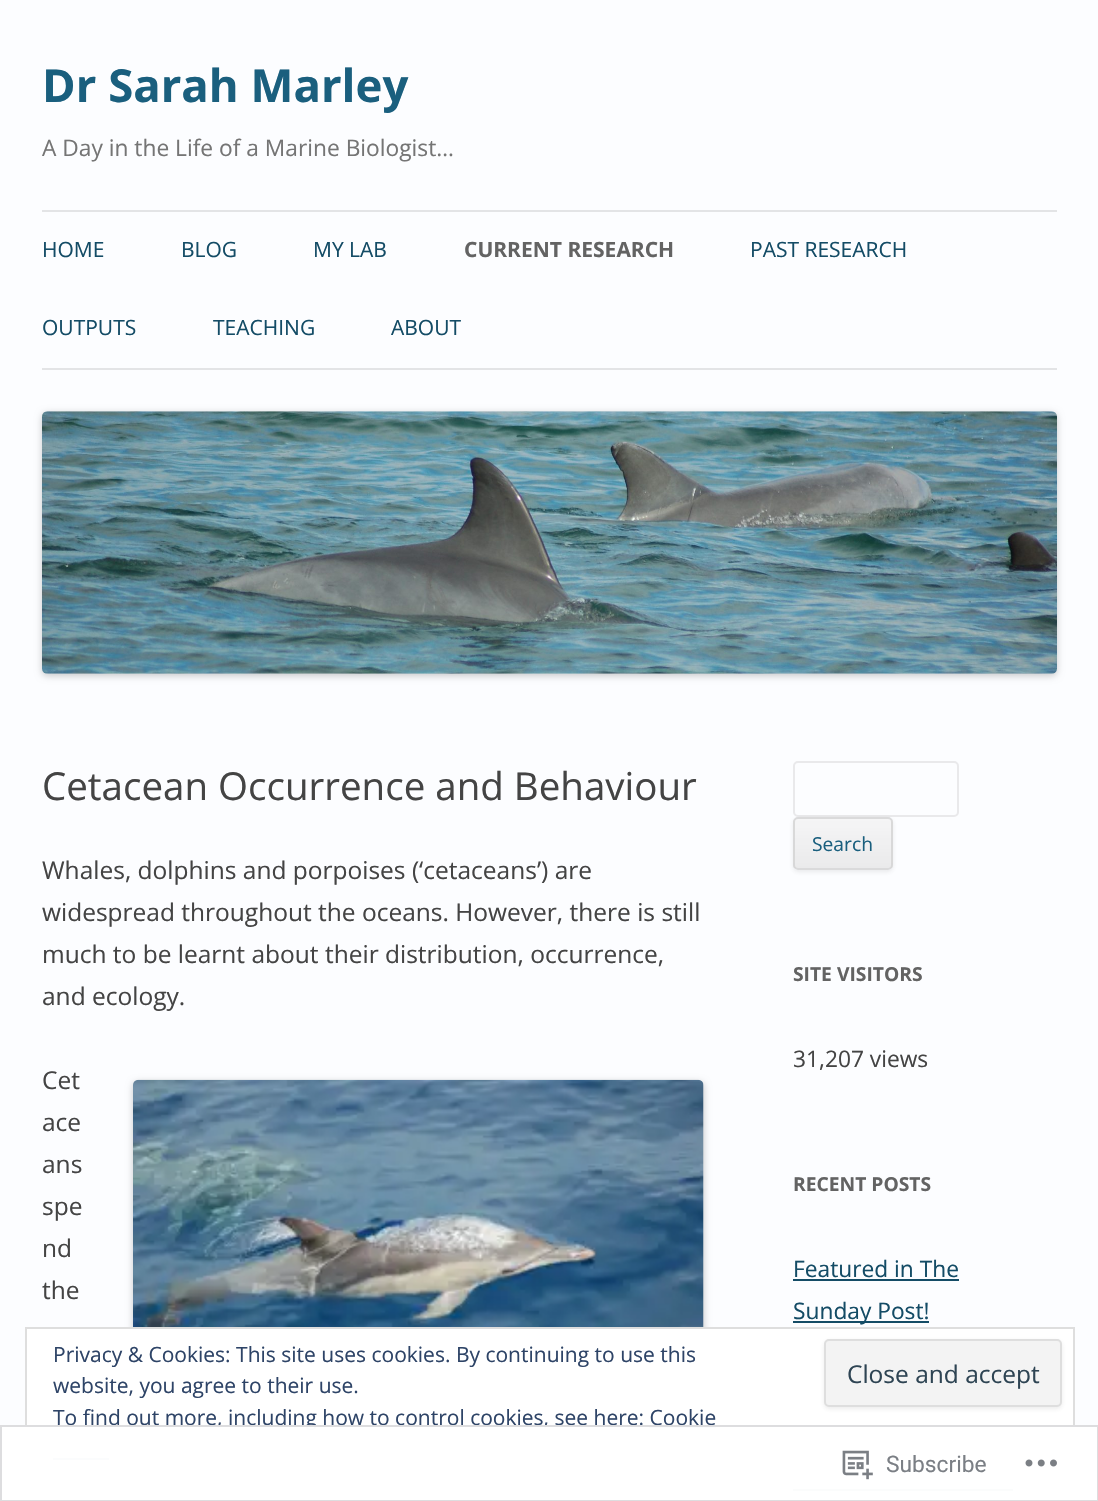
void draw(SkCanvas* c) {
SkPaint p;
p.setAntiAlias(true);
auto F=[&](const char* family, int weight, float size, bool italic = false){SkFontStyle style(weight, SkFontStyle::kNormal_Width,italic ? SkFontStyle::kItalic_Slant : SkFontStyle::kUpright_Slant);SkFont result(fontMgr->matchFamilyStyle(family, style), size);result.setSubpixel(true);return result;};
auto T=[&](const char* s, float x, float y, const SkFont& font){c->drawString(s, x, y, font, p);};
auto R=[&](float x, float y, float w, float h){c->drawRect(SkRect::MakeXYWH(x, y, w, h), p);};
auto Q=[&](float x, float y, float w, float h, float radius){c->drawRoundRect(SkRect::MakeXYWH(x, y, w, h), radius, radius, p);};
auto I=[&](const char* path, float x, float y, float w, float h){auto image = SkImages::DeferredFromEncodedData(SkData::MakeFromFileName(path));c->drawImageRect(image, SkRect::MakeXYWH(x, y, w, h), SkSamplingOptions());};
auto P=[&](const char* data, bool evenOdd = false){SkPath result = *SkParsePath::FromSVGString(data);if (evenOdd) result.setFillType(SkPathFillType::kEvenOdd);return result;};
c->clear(0xfffcfdff);
auto f1 = F("Open Sans",700,45.5);
p.setColor(0xff1a5f7e);
T("Dr Sarah Marley",42,102,f1);
auto f2 = F("Open Sans",400,22.75);
p.setColor(0xff757575);
T("A Day in the Life of a Marine Biologist…",42,156,f2);
p.setColor(0xffe3e4e6);
R(42,210,1015,2);
R(42,368,1015,2);
auto f3 = F("Open Sans",400,21);
p.setColor(0xff144c66);
T("HOME",42,257,f3);
T("BLOG",181,257,f3);
T("MY LAB",313,257,f3);
auto f4 = F("Open Sans",700,21);
p.setColor(0xff636363);
T("CURRENT RESEARCH",464,257,f4);
p.setColor(0xff144c66);
T("PAST RESEARCH",750,257,f3);
T("OUTPUTS",42,335,f3);
T("TEACHING",213,335,f3);
T("ABOUT",391,335,f3);
p.setColor(0x33000000);
p.setMaskFilter(SkMaskFilter::MakeBlur(kNormal_SkBlurStyle, 3.5));
c->drawRoundRect(SkRect::MakeXYWH(42,413,1015,263),5,5,p);
p.setMaskFilter(nullptr);
I("1.png",42,411,1015,263);
auto f5 = F("Open Sans",400,38.5);
p.setColor(0xff444444);
T("Cetacean Occurrence and Behaviour",42,800,f5);
auto f6 = F("Open Sans",400,24.5);
T("Whales, dolphins and porpoises (‘cetaceans’) are",42,879,f6);
T("widespread throughout the oceans. However, there is still",42,921,f6);
T("much to be learnt about their distribution, occurrence,",42,963,f6);
T("and ecology.",42,1005,f6);
T("Cet",42,1089,f6);
T("ace",42,1131,f6);
T("ans",42,1173,f6);
T("spe",42,1215,f6);
T("nd",42,1257,f6);
T("the",42,1299,f6);
p.setColor(0x33000000);
p.setMaskFilter(SkMaskFilter::MakeBlur(kNormal_SkBlurStyle, 3.5));
c->drawRoundRect(SkRect::MakeXYWH(133,1082,571,378),5,5,p);
p.setMaskFilter(nullptr);
I("2.png",133,1079,571,248);
p.setStroke(true);
p.setStrokeWidth(2);
p.setColor(0xffe9e9eb);
c->drawRoundRect(SkRect::MakeXYWH(794,762,164,54),4,4,p);
c->save();
c->clipPath(P("M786 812h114v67h-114zm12 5h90c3 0 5 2 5 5v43c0 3-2 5-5 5h-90c-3 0-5-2-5-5v-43c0-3 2-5 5-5z",true),true);
p.setStroke(false);
p.setColor(0x1a404040);
p.setMaskFilter(SkMaskFilter::MakeBlur(kNormal_SkBlurStyle, 2));
c->drawRoundRect(SkRect::MakeXYWH(793,819,100,53),5,5,p);
p.setMaskFilter(nullptr);
c->restore();
p.setColor(0x1acdd5f3);
Q(793,817,100,53,5);
c->save();
c->clipPath(P("M798 817h90c3 0 5 2 5 5v43c0 3-2 5-5 5h-90c-3 0-5-2-5-5v-43c0-3 2-5 5-5z"),true);
{
const SkColor colors[] = {0xccf4f4f4,0xcce6e6e6};
const float stops[] = {0,1};
const SkPoint ends[] = {{843,819}, {843,868}};
p.setShader(SkGradientShader::MakeLinear(ends, colors, stops, 2, SkTileMode::kClamp));
p.setAlpha(255);
}
R(793,819,100,49);
c->restore();
p.setStroke(true);
p.setShader(nullptr);
p.setColor(0xccd2d2d2);
c->drawRoundRect(SkRect::MakeXYWH(794,818,98,51),4,4,p);
auto f7 = F("Open Sans",400,19.25);
p.setStroke(false);
p.setColor(0xff1a5f7e);
T("Search",812,851,f7);
auto f8 = F("Open Sans",700,19.25);
p.setColor(0xff636363);
T("SITE VISITORS",793,981,f8);
p.setColor(0xff444444);
T("31,207 views",793,1067,f2);
p.setColor(0xff636363);
T("RECENT POSTS",793,1191,f8);
p.setColor(0xff144c66);
T("Featured in The",793,1277,f2);
R(793,1279,166,2);
R(793,1321,136,2);
T("Sunday Post!",793,1319,f2);
R(793,1489,220,2);
p.setColor(0xffffffff);
c->drawRect(SkRect::MakeXYWH(26,1328,1048,148),p);
p.setStroke(true);
p.setColor(0xffdedede);
c->drawRect(SkRect::MakeXYWH(26,1328,1048,148),p);
p.setStroke(false);
p.setColor(0xff2e4467);
T("Privacy & Cookies: This site uses cookies. By continuing to use this",53,1362,f3);
T("website, you agree to their use.",53,1393,f3);
p.setColor(0x1a404040);
p.setMaskFilter(SkMaskFilter::MakeBlur(kNormal_SkBlurStyle, 2));
c->drawRoundRect(SkRect::MakeXYWH(824,1341,238,68),5,5,p);
p.setMaskFilter(nullptr);
p.setColor(0xfff3f3f3);
c->drawRoundRect(SkRect::MakeXYWH(825,1340,236,66),4,4,p);
p.setStroke(true);
p.setColor(0xffdedede);
c->drawRoundRect(SkRect::MakeXYWH(825,1340,236,66),4,4,p);
p.setStroke(false);
p.setColor(0xff2e4453);
T("Close and accept",847,1383,f6);
p.setColor(0xff2e4467);
T("To find out more, including how to control cookies, see here: Cookie",53,1425,f3);
R(649,1426,67,2);
R(53,1458,56,2);
p.setColor(0xfaffffff);
R(0,1425,1098,76);
p.setStroke(true);
p.setColor(0xfadcdcde);
c->drawRect(SkRect::MakeXYWH(1,1426,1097,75),p);
I("3.png",842,1450,31,30);
auto f9 = F("Roboto",400,22.75);
p.setStroke(false);
p.setColor(0xff7b7f85);
T("Subscribe",886,1472,f9);
I("4.png",1025,1459,32,8);
}
